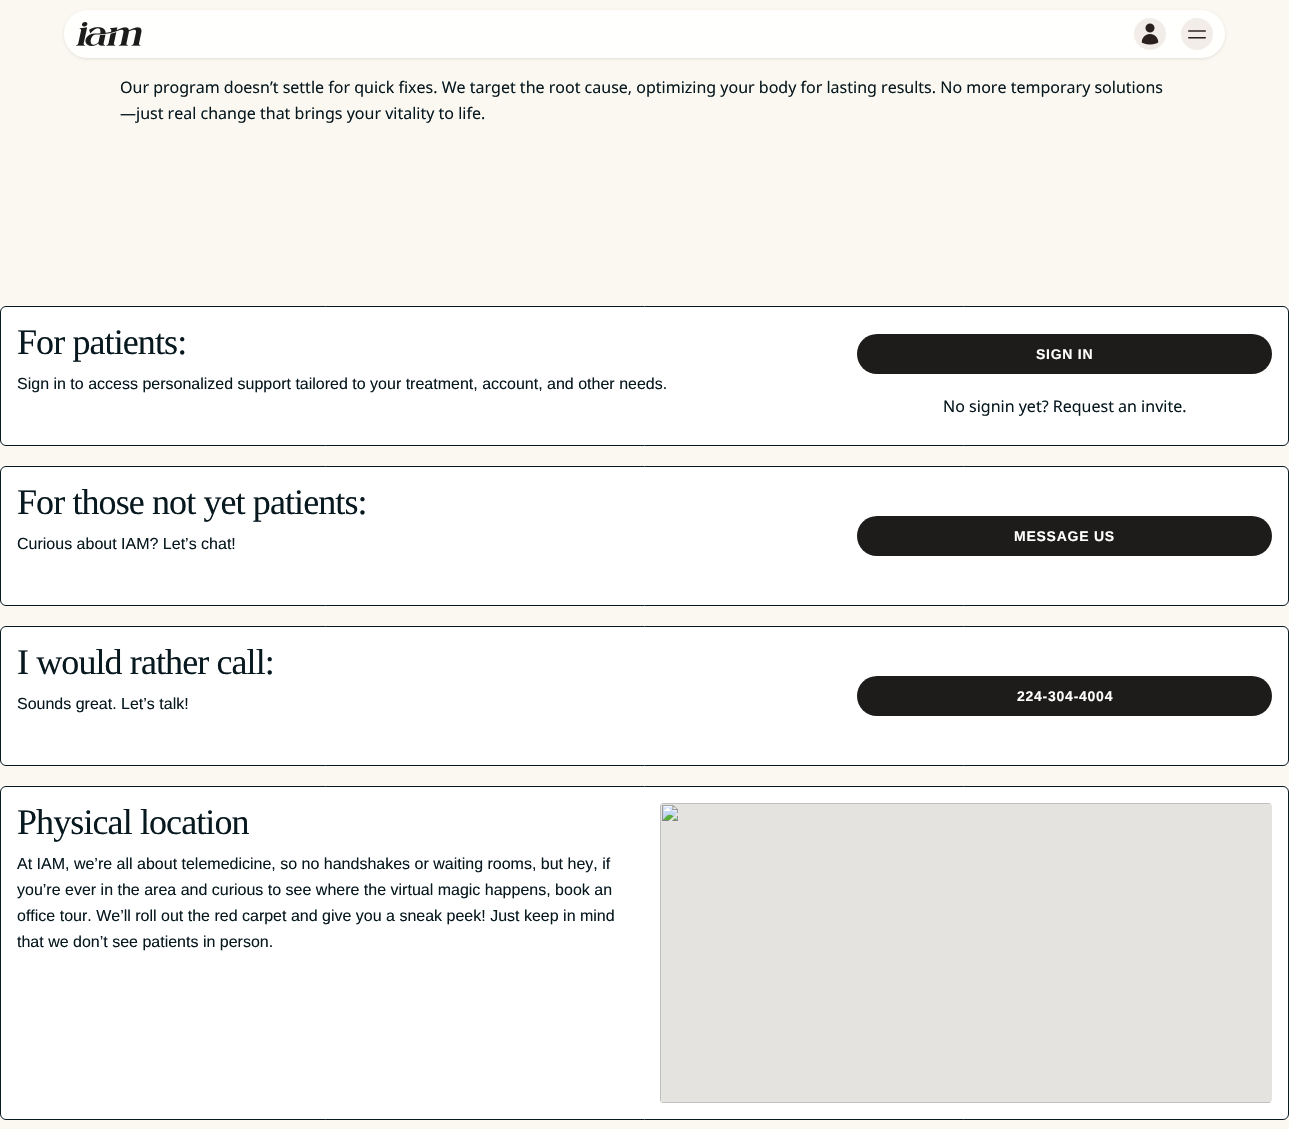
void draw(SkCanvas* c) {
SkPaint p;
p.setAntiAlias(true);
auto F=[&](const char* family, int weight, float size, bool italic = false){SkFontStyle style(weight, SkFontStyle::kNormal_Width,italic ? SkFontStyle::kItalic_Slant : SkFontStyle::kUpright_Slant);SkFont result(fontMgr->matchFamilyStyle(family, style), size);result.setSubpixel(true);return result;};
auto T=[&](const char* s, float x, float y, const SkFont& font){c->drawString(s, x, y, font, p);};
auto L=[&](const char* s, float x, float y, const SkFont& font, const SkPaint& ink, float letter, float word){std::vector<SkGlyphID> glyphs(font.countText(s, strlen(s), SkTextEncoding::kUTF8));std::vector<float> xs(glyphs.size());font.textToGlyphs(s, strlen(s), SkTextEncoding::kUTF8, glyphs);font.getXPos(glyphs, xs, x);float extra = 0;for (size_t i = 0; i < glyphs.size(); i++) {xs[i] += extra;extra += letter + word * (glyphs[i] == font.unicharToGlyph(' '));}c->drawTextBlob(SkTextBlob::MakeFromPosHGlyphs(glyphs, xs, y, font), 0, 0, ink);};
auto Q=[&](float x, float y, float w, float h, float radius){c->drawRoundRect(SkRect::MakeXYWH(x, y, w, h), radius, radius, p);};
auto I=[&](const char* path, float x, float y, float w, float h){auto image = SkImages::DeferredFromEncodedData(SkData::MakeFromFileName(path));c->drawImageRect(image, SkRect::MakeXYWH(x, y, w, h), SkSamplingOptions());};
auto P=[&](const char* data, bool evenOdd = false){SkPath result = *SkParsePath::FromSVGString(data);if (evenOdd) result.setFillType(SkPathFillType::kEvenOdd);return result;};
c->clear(0xfffbf8f1);
c->save();
c->clipPath(P("M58 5h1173v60h-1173zm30 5h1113c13.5 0 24 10.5 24 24c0 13.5-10.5 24-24 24h-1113c-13.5 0-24-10.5-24-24c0-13.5 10.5-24 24-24z",true),true);
p.setColor(0x1a000000);
p.setMaskFilter(SkMaskFilter::MakeBlur(kNormal_SkBlurStyle, 1.5));
c->drawRoundRect(SkRect::MakeXYWH(64,11,1161,48),24,24,p);
p.setMaskFilter(nullptr);
c->restore();
p.setColor(0xe6ffffff);
Q(64,10,1161,48,24);
I("1.png",76,22,66,24);
p.setColor(0xfff2ede9);
c->drawCircle(1150,34,16,p);
I("2.png",1141,23,18,22);
c->drawCircle(1197,34,16,p);
I("3.png",1188,30,18,9);
auto f1 = F("Noto Sans",400,16);
p.setColor(0xff07181f);
T("Our program doesn’t settle for quick fixes. We target the root cause, optimizing your body for lasting results. No more temporary solutions",120,93,f1);
T("—just real change that brings your vitality to life.",120,119,f1);
p.setColor(0xffffffff);
c->drawRoundRect(SkRect::MakeXYWH(.5,306.5,1288,139),5.5,5.5,p);
p.setStroke(true);
p.setStrokeWidth(1);
p.setColor(0xff07181f);
c->drawRoundRect(SkRect::MakeXYWH(.5,306.5,1288,139),5.5,5.5,p);
auto f2 = F("Liberation Serif",400,36);
p.setStroke(false);
L("For patients:",17,354,f2,p,-.9,0);
auto f3 = F("Liberation Sans",400,16);
T("Sign in to access personalized support tailored to your treatment, account, and other needs.",17,389,f3);
p.setColor(0xff1e1c1a);
Q(857,334,415,40,20);
auto f4 = F("Liberation Sans",700,14);
p.setColor(0xffffffff);
L("SIGN IN",1036,359,f4,p,.75,0);
p.setColor(0xff07181f);
T("No signin yet? Request an invite.",943,412,f1);
p.setColor(0xffffffff);
c->drawRoundRect(SkRect::MakeXYWH(.5,466.5,1288,139),5.5,5.5,p);
p.setStroke(true);
p.setColor(0xff07181f);
c->drawRoundRect(SkRect::MakeXYWH(.5,466.5,1288,139),5.5,5.5,p);
p.setStroke(false);
L("For those not yet patients:",17,514,f2,p,-.9,0);
T("Curious about IAM? Let’s chat!",17,549,f3);
p.setColor(0xff1e1c1a);
Q(857,516,415,40,20);
p.setColor(0xffffffff);
L("MESSAGE US",1014,541,f4,p,.75,0);
c->drawRoundRect(SkRect::MakeXYWH(.5,626.5,1288,139),5.5,5.5,p);
p.setStroke(true);
p.setColor(0xff07181f);
c->drawRoundRect(SkRect::MakeXYWH(.5,626.5,1288,139),5.5,5.5,p);
p.setStroke(false);
L("I would rather call:",17,674,f2,p,-.9,0);
T("Sounds great. Let’s talk!",17,709,f3);
p.setColor(0xff1e1c1a);
Q(857,676,415,40,20);
p.setColor(0xffffffff);
L("224-304-4004",1017,701,f4,p,.75,0);
c->drawRoundRect(SkRect::MakeXYWH(.5,786.5,1288,333),5.5,5.5,p);
p.setStroke(true);
p.setColor(0xff07181f);
c->drawRoundRect(SkRect::MakeXYWH(.5,786.5,1288,333),5.5,5.5,p);
p.setStroke(false);
L("Physical location",17,834,f2,p,-.9,0);
T("At IAM, we’re all about telemedicine, so no handshakes or waiting rooms, but hey, if",17,869,f3);
T("you’re ever in the area and curious to see where the virtual magic happens, book an",17,895,f3);
T("office tour. We’ll roll out the red carpet and give you a sneak peek! Just keep in mind",17,921,f3);
T("that we don’t see patients in person.",17,947,f3);
I("4.png",660,803,612,300);
}
